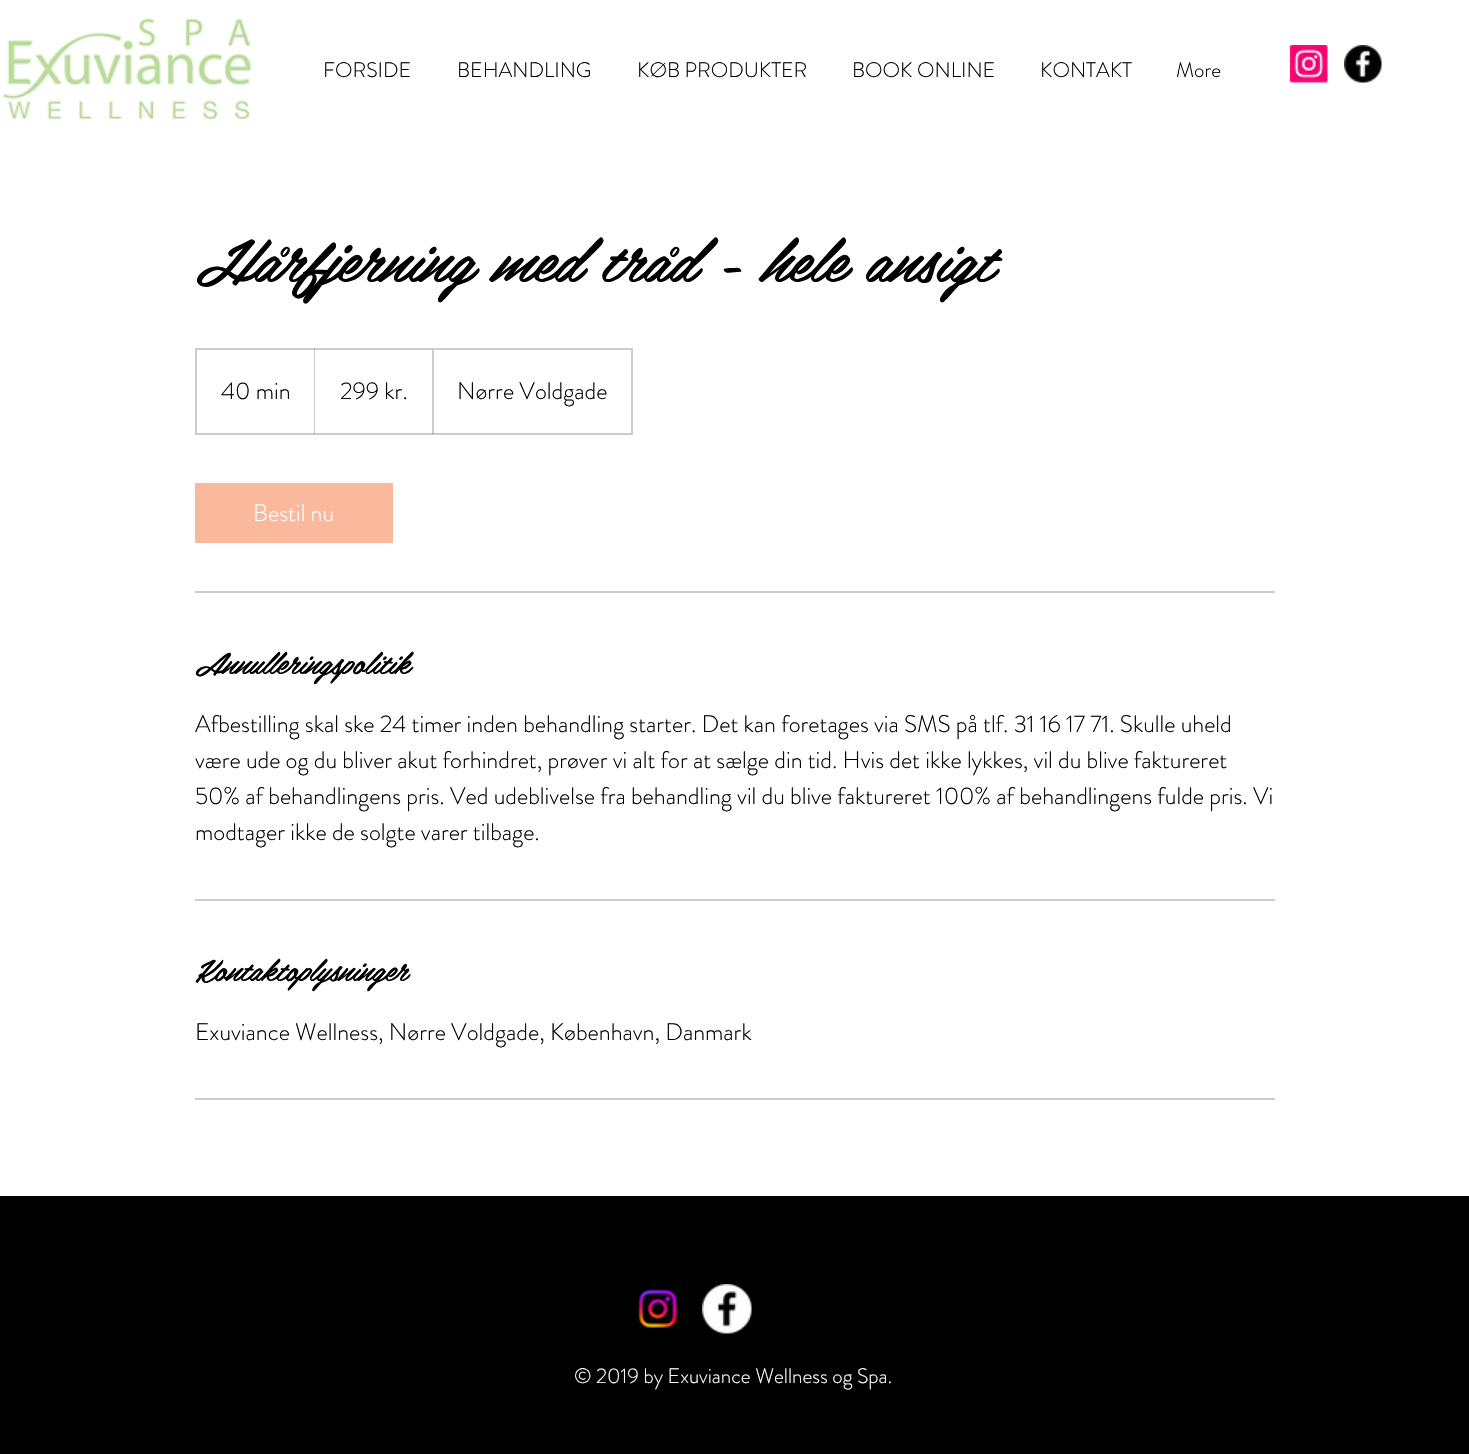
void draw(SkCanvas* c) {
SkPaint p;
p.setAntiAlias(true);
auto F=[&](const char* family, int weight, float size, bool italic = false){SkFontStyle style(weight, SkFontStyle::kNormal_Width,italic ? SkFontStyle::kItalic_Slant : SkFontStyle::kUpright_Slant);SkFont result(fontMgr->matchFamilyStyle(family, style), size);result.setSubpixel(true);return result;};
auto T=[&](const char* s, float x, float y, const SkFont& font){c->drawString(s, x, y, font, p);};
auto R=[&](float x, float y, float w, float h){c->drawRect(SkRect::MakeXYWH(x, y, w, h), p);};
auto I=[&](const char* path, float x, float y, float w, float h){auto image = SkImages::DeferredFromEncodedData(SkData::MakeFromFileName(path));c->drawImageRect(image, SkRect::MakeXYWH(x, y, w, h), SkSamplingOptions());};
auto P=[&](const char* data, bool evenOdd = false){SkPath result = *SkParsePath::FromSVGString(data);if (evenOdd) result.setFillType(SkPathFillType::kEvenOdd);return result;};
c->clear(0xffffffff);
I("1.png",2,18,250,103);
auto f1 = F("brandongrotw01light",300,21);
p.setColor(0xff000000);
T("FORSIDE",323,77,f1);
T("BEHANDLING",457,77,f1);
T("KØB PRODUKTER",637,77,f1);
T("BOOK ONLINE",852,77,f1);
T("KONTAKT",1040,77,f1);
T("More",1176,77,f1);
I("2.png",1290,45,38,38);
I("3.png",1344,45,38,38);
auto f2 = F("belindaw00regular",400,60,true);
T("Hårfjerning med tråd - hele ansigt",195,282,f2);
p.setStroke(true);
p.setStrokeWidth(2);
p.setColor(0xffcccccc);
c->drawRect(SkRect::MakeXYWH(196,349,436,85),p);
auto f3 = F("brandongrotw01light",300,24);
p.setStroke(false);
p.setColor(0xff000000);
T("40 min",221,399,f3);
p.setColor(0x33000000);
c->drawPath(P("M314 434v-86l1 2v84z"),p);
p.setColor(0xff000000);
T("299 kr.",340,399,f3);
c->save();
c->clipRect(SkRect::MakeXYWH(197,350,435,84));
p.setColor(0x33000000);
c->drawPath(P("M432 434v-86l2 2v84z"),p);
c->restore();
p.setColor(0xff000000);
T("Nørre Voldgade",457,399,f3);
p.setColor(0xfffab89d);
R(195,483,198,60);
p.setColor(0xffffffff);
T("Bestil nu",253,521,f3);
p.setColor(0xffcccccc);
R(195,591,1080,2);
auto f4 = F("belindaw00regular",400,30,true);
p.setColor(0xff000000);
T("Annulleringspolitik",195,674,f4);
T("Afbestilling skal ske 24 timer inden behandling starter. Det kan foretages via SMS på tlf. 31 16 17 71. Skulle uheld",195,732,f3);
T("være ude og du bliver akut forhindret, prøver vi alt for at sælge din tid. Hvis det ikke lykkes, vil du blive faktureret",195,768,f3);
T("50% af behandlingens pris. Ved udeblivelse fra behandling vil du blive faktureret 100% af behandlingens fulde pris. Vi",195,804,f3);
T("modtager ikke de solgte varer tilbage.",195,840,f3);
p.setColor(0xffcccccc);
R(195,899,1080,2);
p.setColor(0xff000000);
T("Kontaktoplysninger",195,981,f4);
T("Exuviance Wellness, Nørre Voldgade, København, Danmark",195,1040,f3);
p.setColor(0xffcccccc);
R(195,1098,1080,2);
p.setColor(0xff000000);
R(0,1196,1469,258);
I("4.png",638,1289,39,39);
I("5.png",702,1284,50,50);
p.setColor(0xffffffff);
T("© 2019 by Exuviance Wellness og Spa.",574,1383,f1);
}
